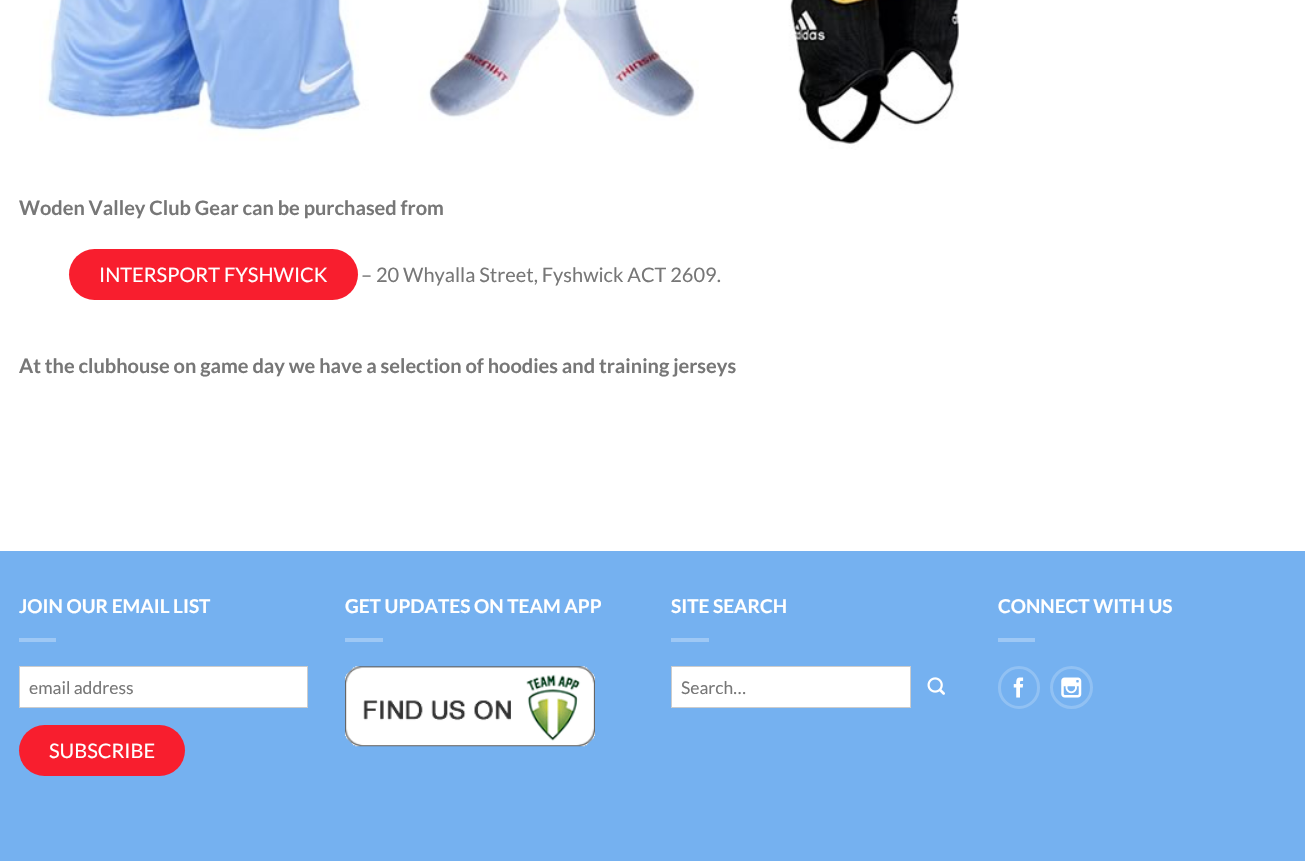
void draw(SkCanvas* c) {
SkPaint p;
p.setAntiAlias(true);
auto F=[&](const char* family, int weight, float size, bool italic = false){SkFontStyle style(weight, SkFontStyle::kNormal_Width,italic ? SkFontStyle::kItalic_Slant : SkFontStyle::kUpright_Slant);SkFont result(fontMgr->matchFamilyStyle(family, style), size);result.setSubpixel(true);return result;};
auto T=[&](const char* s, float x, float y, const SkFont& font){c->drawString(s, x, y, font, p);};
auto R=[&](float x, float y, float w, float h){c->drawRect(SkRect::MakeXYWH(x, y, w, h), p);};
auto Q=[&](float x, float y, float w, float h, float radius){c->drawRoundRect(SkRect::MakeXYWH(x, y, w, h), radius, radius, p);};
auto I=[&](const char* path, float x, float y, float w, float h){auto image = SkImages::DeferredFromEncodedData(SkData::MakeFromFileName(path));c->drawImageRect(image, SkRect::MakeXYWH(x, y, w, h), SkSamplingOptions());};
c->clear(0xffffffff);
I("1.png",39,0,920,150);
auto f1 = F("Lato",700,20);
p.setColor(0xff777777);
T("Woden Valley Club Gear can be purchased from",19,215,f1);
p.setColor(0xfff81e2e);
Q(69,249,289,51,25.5);
auto f2 = F("Lato",400,20);
p.setColor(0xffffffff);
T("INTERSPORT FYSHWICK",99,282,f2);
p.setColor(0xff777777);
T("– 20 Whyalla Street, Fyshwick ACT 2609.",361,282,f2);
T("At the clubhouse on game day we have a selection of hoodies and training jerseys",19,373,f1);
p.setColor(0xff75b1f0);
R(0,551,1305,310);
auto f3 = F("Lato",700,19);
p.setColor(0xffffffff);
T("JOIN OUR EMAIL LIST",19,613,f3);
p.setColor(0xff9ec8f5);
R(19,638,37,4);
p.setColor(0xffffffff);
c->drawRect(SkRect::MakeXYWH(19.5,666.5,288,41),p);
p.setStroke(true);
p.setStrokeWidth(1);
p.setColor(0xffcccccc);
c->drawRect(SkRect::MakeXYWH(19.5,666.5,288,41),p);
auto f4 = F("Lato",400,17.5);
p.setStroke(false);
p.setColor(0xff777777);
T("email address",29,694,f4);
p.setColor(0xfff81e2e);
Q(19,725,166,51,25.5);
p.setColor(0xffffffff);
T("SUBSCRIBE",49,758,f2);
T("GET UPDATES ON TEAM APP",345,613,f3);
p.setColor(0xff9ec8f5);
R(345,638,38,4);
I("2.png",345,666,250,81);
p.setColor(0xffffffff);
T("SITE SEARCH",671,613,f3);
p.setColor(0xff9ec8f5);
R(671,638,38,4);
p.setColor(0xffffffff);
c->drawRect(SkRect::MakeXYWH(671.5,666.5,239,41),p);
p.setStroke(true);
p.setColor(0xffcccccc);
c->drawRect(SkRect::MakeXYWH(671.5,666.5,239,41),p);
p.setStroke(false);
p.setColor(0xff777777);
T("Search…",681,694,f4);
I("3.png",927,677,18,18);
p.setColor(0xffffffff);
T("CONNECT WITH US",998,613,f3);
p.setColor(0xff9ec8f5);
R(998,638,37,4);
p.setStroke(true);
p.setStrokeWidth(3);
p.setColor(0xff91c1f3);
c->drawRoundRect(SkRect::MakeXYWH(999.5,667.5,39,40),19.5,19.5,p);
I("4.png",1013,677,11,21);
c->drawCircle(1071.5,687.5,20,p);
I("5.png",1061,677,21,21);
}
